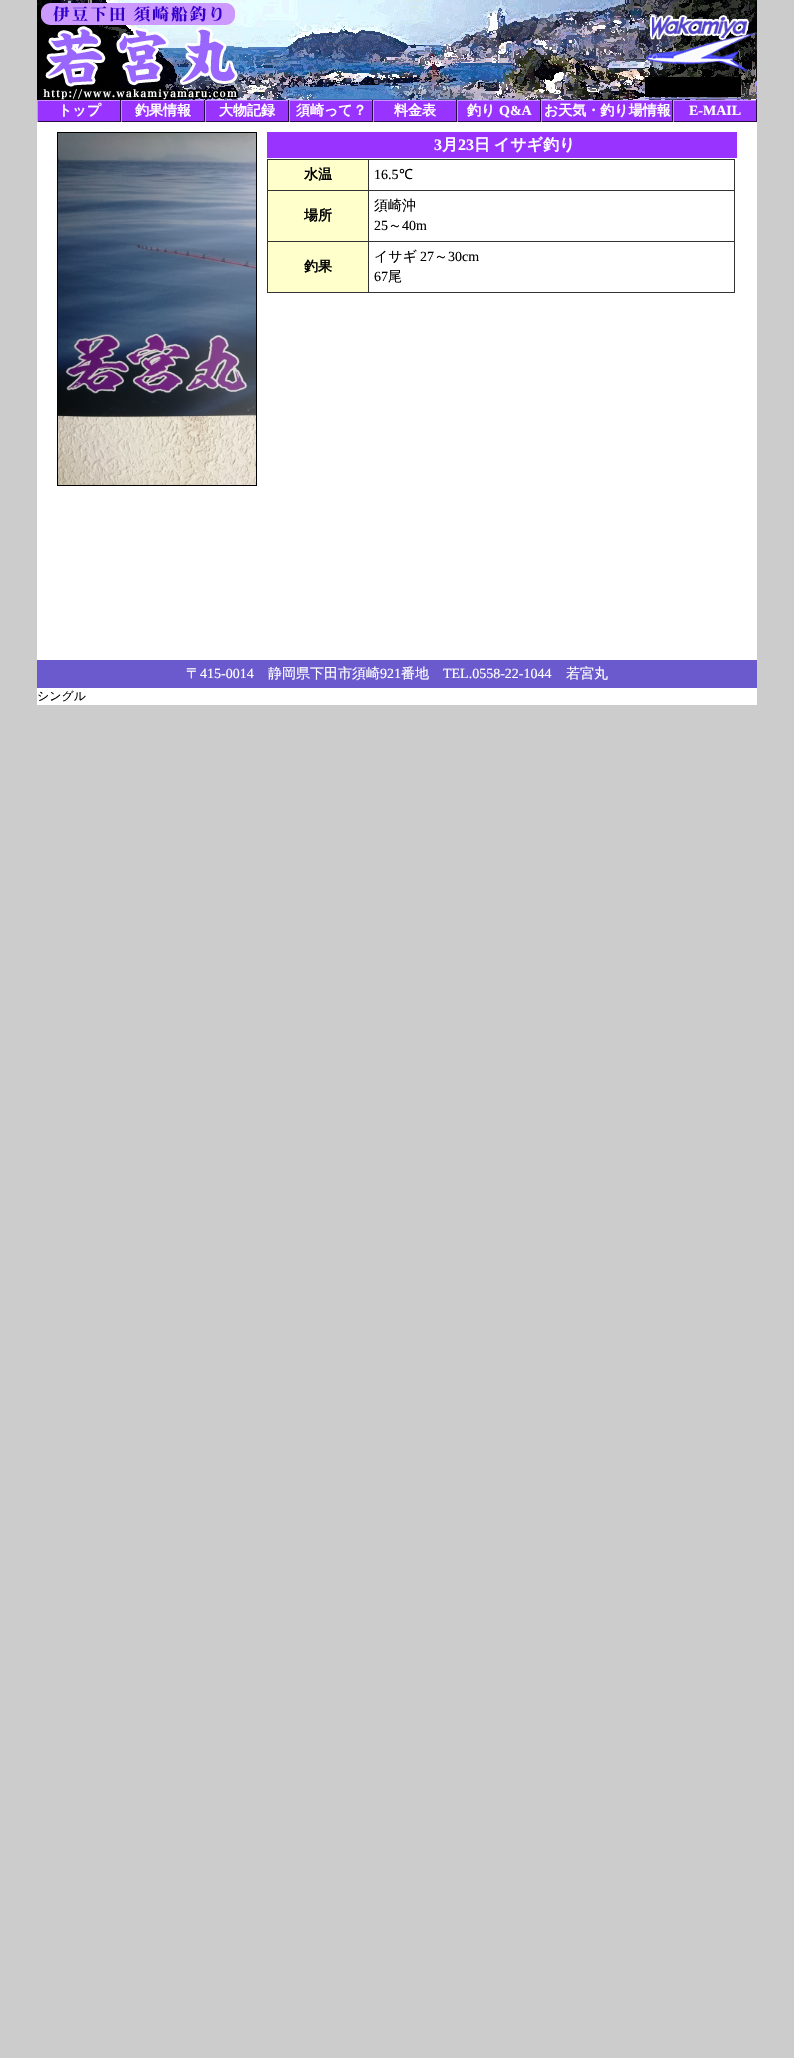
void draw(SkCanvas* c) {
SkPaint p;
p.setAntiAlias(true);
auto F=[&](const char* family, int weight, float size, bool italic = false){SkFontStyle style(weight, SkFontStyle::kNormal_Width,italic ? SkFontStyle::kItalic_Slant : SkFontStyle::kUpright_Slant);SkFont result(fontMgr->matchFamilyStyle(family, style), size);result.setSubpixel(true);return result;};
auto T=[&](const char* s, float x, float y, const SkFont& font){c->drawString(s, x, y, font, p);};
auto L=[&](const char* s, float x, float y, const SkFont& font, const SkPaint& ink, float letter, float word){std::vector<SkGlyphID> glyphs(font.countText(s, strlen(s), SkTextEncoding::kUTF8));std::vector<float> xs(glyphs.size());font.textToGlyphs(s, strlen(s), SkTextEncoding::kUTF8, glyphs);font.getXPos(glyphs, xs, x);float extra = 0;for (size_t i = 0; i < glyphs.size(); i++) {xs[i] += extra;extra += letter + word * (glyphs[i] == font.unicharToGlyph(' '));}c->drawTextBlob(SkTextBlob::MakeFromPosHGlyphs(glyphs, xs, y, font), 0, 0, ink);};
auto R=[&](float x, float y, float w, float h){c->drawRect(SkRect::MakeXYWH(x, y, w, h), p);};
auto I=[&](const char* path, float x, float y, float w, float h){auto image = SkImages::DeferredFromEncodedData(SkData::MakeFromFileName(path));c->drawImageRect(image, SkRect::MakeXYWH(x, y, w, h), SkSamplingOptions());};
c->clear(0xffcccccc);
p.setColor(0xffffffff);
R(37,122,720,583);
I("1.png",37,0,720,100);
I("2.png",237,41,5,59);
p.setColor(0xff9933ff);
R(38,101,82,20);
p.setColor(0xffc891ff);
R(37,100,720,1);
p.setColor(0xff270d41);
R(120,100,1,22);
R(37,121,84,1);
p.setColor(0xffc891ff);
R(37,100,1,22);
auto f1 = F("WenQuanYi Zen Hei",700,14);
p.setColor(0xffffffff);
T("トップ",58,115,f1);
p.setColor(0xff9933ff);
R(122,101,82,20);
p.setColor(0xff270d41);
R(204,100,1,22);
R(121,121,84,1);
p.setColor(0xffc891ff);
R(121,100,1,22);
p.setColor(0xffffffff);
T("釣果情報",135,115,f1);
p.setColor(0xff9933ff);
R(206,101,82,20);
p.setColor(0xff270d41);
R(288,100,1,22);
R(205,121,84,1);
p.setColor(0xffc891ff);
R(205,100,1,22);
p.setColor(0xffffffff);
T("大物記録",219,115,f1);
p.setColor(0xff9933ff);
R(290,101,82,20);
p.setColor(0xff270d41);
R(372,100,1,22);
R(289,121,84,1);
p.setColor(0xffc891ff);
R(289,100,1,22);
p.setColor(0xffffffff);
T("須崎って？",296,115,f1);
p.setColor(0xff9933ff);
R(374,101,82,20);
p.setColor(0xff270d41);
R(456,100,1,22);
R(373,121,84,1);
p.setColor(0xffc891ff);
R(373,100,1,22);
p.setColor(0xffffffff);
T("料金表",394,115,f1);
p.setColor(0xff9933ff);
R(458,101,82,20);
p.setColor(0xff270d41);
R(540,100,1,22);
R(457,121,84,1);
p.setColor(0xffc891ff);
R(457,100,1,22);
p.setColor(0xffffffff);
T("釣り",467,115,f1);
auto f2 = F("Liberation Serif",700,14);
T("Q&A",499,115,f2);
p.setColor(0xff9933ff);
R(542,101,130,20);
p.setColor(0xff270d41);
R(672,100,1,22);
R(541,121,132,1);
p.setColor(0xffc891ff);
R(541,100,1,22);
p.setColor(0xffffffff);
T("お天気・釣り場情報",544,115,f1);
p.setColor(0xff9933ff);
R(674,101,82,20);
p.setColor(0xff270d41);
R(756,100,1,22);
R(673,121,84,1);
p.setColor(0xffc891ff);
R(673,100,1,22);
p.setColor(0xffffffff);
T("E-MAIL",689,115,f2);
p.setStroke(true);
p.setStrokeWidth(1);
p.setColor(0xff000000);
c->drawRect(SkRect::MakeXYWH(57.5,132.5,199,353),p);
I("3.png",58,133,198,352);
p.setStroke(false);
p.setColor(0xff9933ff);
R(267,132,470,26);
auto f3 = F("Liberation Serif",700,16);
p.setColor(0xffffffff);
T("3",434,150,f3);
auto f4 = F("WenQuanYi Zen Hei",700,16);
T("月",442,150,f4);
T("23",458,150,f3);
L("日 イサギ釣り",474,150,f4,p,0,-1);
p.setColor(0xffffffcc);
R(268,160,100,132);
p.setColor(0xff333333);
R(267,159,468,1);
R(734,159,1,134);
R(267,292,468,1);
R(267,159,1,134);
p.setColor(0xff000000);
T("水温",304,179,f1);
p.setColor(0xff333333);
R(368,190,367,1);
R(368,241,367,1);
R(368,241,1,52);
R(267,241,102,1);
R(368,190,1,52);
R(267,190,102,1);
R(368,159,1,32);
auto f5 = F("Liberation Serif",400,14);
p.setColor(0xff000000);
T("16.5",374,179,f5);
auto f6 = F("Noto Sans",400,14);
T("℃",399,179,f6);
T("場所",304,220,f1);
auto f7 = F("WenQuanYi Zen Hei",500,14);
T("須崎沖",374,210,f7);
T("25",374,230,f5);
T("～",388,230,f7);
T("40m",402,230,f5);
T("釣果",304,271,f1);
T("イサギ",374,261,f7);
T("27",420,261,f5);
T("～",434,261,f7);
T("30cm",448,261,f5);
T("67",374,281,f5);
T("尾",388,281,f7);
p.setColor(0xff6a5acd);
R(37,660,720,28);
p.setColor(0xffffffff);
T("〒",186,678,f7);
T("415-0014",200,678,f5);
T("静岡県下田市須崎",268,678,f7);
T("921",380,678,f5);
T("番地",401,678,f7);
T("TEL.0558-22-1044",443,678,f5);
T("若宮丸",566,678,f7);
auto f8 = F("WenQuanYi Zen Hei",500,12);
p.setColor(0xff000000);
T("シングル",37,700,f8);
}
